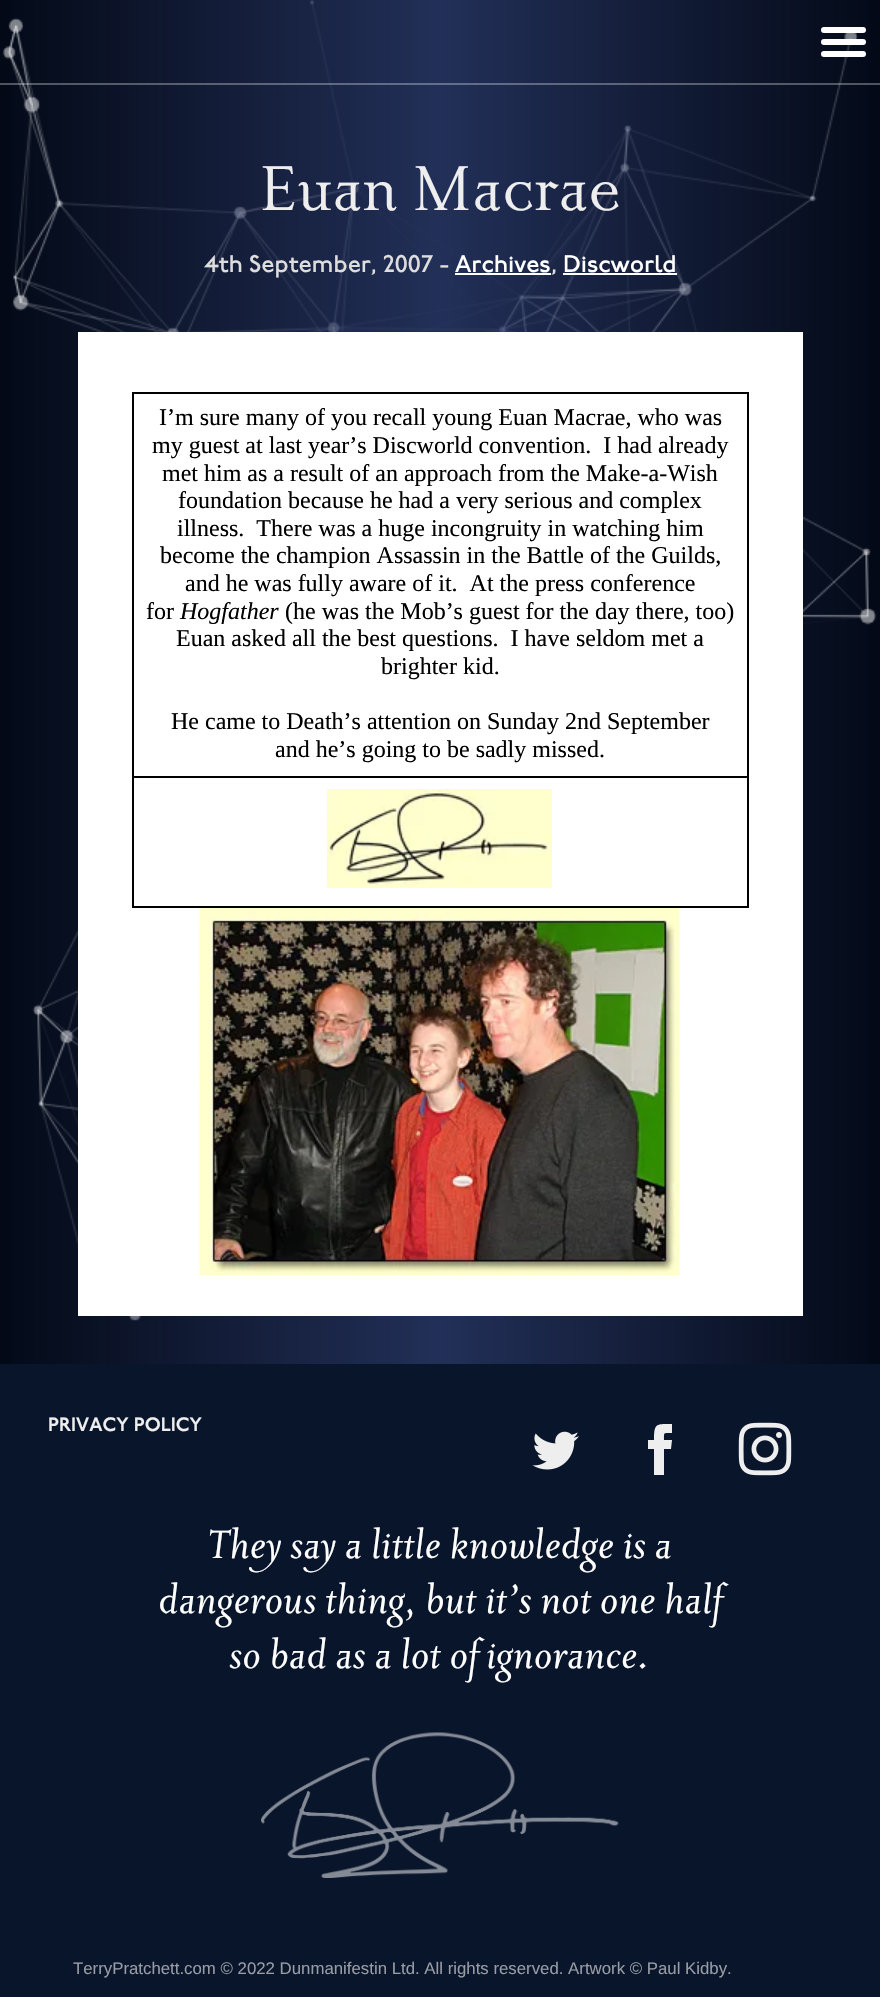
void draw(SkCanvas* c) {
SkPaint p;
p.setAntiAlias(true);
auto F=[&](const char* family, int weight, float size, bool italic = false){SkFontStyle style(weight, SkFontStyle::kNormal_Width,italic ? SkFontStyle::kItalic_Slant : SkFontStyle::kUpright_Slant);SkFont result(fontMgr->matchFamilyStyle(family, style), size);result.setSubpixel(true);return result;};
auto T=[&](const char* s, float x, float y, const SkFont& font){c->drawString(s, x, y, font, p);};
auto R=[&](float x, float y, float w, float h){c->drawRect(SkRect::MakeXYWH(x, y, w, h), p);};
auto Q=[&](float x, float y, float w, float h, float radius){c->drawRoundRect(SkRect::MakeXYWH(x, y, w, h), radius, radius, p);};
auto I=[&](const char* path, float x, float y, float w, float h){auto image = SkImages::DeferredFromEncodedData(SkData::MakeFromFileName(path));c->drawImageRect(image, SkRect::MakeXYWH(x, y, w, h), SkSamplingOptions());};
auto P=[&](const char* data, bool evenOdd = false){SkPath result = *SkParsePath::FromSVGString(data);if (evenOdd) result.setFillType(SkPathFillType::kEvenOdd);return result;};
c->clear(0xff030917);
I("1.png",2,0,875,1321);
{
const SkColor colors[] = {0x0025335e,0xe625335e,0x0025335e};
const float stops[] = {0,.5,1};
const SkPoint ends[] = {{0,999}, {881,999}};
p.setShader(SkGradientShader::MakeLinear(ends, colors, stops, 3, SkTileMode::kClamp));
p.setAlpha(255);
}
R(11,0,858,1364);
p.setShader(nullptr);
p.setColor(0x4dffffff);
R(0,83,880,2);
p.setColor(0xffffffff);
Q(821,39,45,6,3);
Q(821,27,45,6,3);
Q(821,51,45,6,3);
auto f1 = F("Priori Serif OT",400,77);
p.setColor(0xffeeeeee);
T("Euan Macrae",259,210,f1);
auto f2 = F("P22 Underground",500,24);
p.setColor(0xffdddddd);
T("4th September, 2007 -",204,272,f2);
p.setColor(0xffffffff);
T("Archives",455,272,f2);
R(455,273,96,2);
p.setColor(0xffdddddd);
T(",",551,272,f2);
p.setColor(0xffffffff);
T("Discworld",563,272,f2);
R(563,273,114,2);
R(78,332,725,984);
p.setColor(0xff000000);
R(132,392,617,2);
R(132,776,617,2);
R(747,776,2,132);
R(747,392,2,385);
R(132,906,617,2);
R(132,776,2,132);
R(132,392,2,385);
auto f3 = F("Liberation Serif",400,24);
T("I’m sure many of you recall young Euan Macrae, who was",159,425,f3);
T("my guest at last year’s Discworld convention.  I had already",152,453,f3);
T("met him as a result of an approach from the Make-a-Wish",162,481,f3);
T("foundation because he had a very serious and complex",178,508,f3);
T("illness.  There was a huge incongruity in watching him",177,536,f3);
T("become the champion Assassin in the Battle of the Guilds,",160,563,f3);
T("and he was fully aware of it.  At the press conference",185,591,f3);
T("for",146,619,f3);
auto f4 = F("Liberation Serif",400,24,true);
T("Hogfather",180,619,f4);
T("(he was the Mob’s guest for the day there, too)",285,619,f3);
T("Euan asked all the best questions.  I have seldom met a",176,646,f3);
T("brighter kid.",381,674,f3);
T("He came to Death’s attention on Sunday 2nd September",171,729,f3);
T("and he’s going to be sadly missed.",275,757,f3);
I("2.png",327,789,225,99);
I("3.png",199,908,481,367);
p.setColor(0xff09152b);
R(0,1364,880,633);
auto f5 = F("P22 Underground",600,19.25);
p.setColor(0xffeeeeee);
T("PRIVACY POLICY",48,1431,f5);
I("4.png",532,1431,47,39);
c->drawPath(P("M654 1440h-6v9h6v26h10v-26h7l1-9h-8c0-8-1-7 8-7v-9c-16 0-18-1-18 16z"),p);
I("5.png",738,1422,54,54);
auto f6 = F("Priori Serif OT",500,48,true);
p.setColor(0xffffffff);
T("They say a little knowledge is a",208,1558,f6);
T("dangerous thing, but it’s not one half",159,1613,f6);
T("so bad as a lot of ignorance.",230,1668,f6);
I("6.png",261,1732,358,146);
auto f7 = F("Liberation Sans",400,16.8);
p.setColor(0xff989ca5);
T("TerryPratchett.com © 2022 Dunmanifestin Ltd. All rights reserved. Artwork © Paul Kidby.",73,1974,f7);
}
